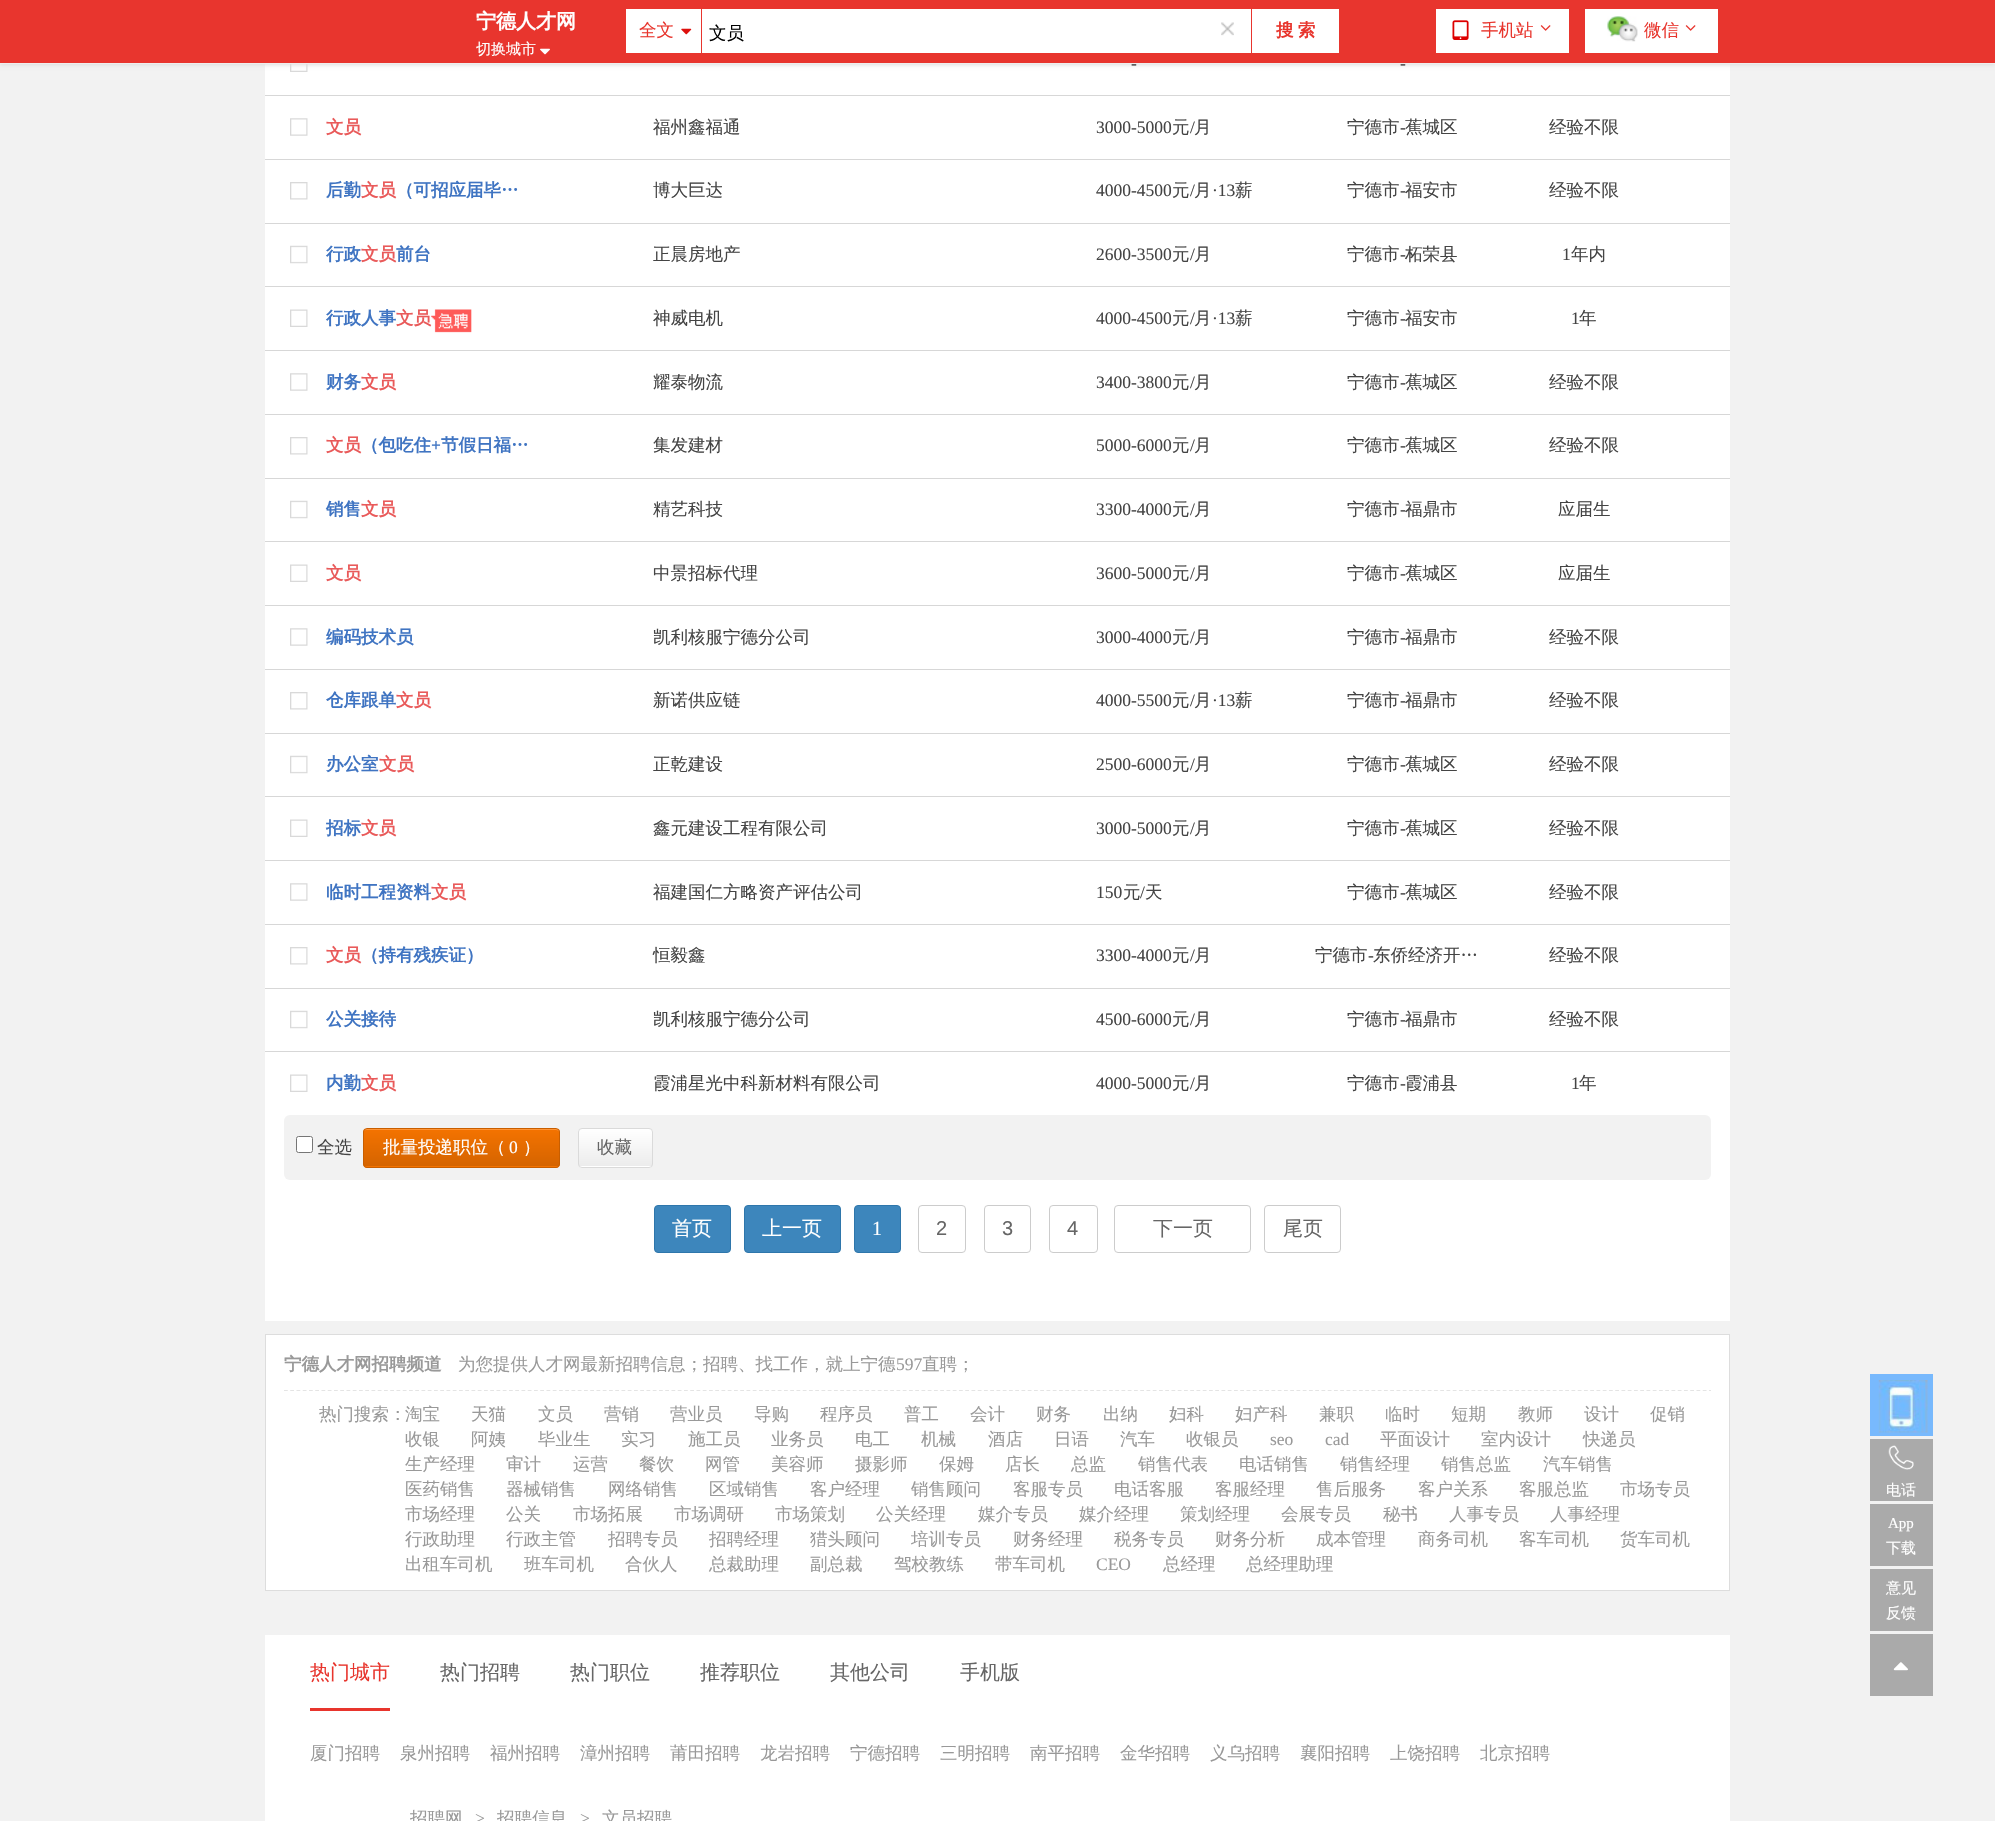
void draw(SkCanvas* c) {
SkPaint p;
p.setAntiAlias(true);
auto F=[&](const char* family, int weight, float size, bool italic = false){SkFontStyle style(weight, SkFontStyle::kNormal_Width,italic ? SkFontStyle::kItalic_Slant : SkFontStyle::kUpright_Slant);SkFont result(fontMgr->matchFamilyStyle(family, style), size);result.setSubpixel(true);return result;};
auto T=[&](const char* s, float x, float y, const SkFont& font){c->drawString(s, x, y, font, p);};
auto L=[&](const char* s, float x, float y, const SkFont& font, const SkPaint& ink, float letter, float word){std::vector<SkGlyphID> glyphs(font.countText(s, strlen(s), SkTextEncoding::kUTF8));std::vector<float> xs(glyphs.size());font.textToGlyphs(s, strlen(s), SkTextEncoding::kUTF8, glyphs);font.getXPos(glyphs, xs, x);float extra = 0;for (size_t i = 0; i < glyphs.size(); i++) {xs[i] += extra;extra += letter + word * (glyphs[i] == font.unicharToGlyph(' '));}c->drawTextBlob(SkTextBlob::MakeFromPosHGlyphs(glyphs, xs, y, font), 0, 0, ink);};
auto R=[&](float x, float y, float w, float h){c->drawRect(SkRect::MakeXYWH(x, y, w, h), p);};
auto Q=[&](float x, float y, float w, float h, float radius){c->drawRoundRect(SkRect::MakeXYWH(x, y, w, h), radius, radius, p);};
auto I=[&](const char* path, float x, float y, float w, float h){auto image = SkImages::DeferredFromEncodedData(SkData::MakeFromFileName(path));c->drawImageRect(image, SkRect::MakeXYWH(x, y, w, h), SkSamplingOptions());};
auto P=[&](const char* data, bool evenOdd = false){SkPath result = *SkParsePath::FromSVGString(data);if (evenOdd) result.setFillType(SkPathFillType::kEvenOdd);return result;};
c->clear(0xfff2f2f2);
p.setColor(0xffffffff);
R(265,64,1465,1257);
I("7.png",290,64,18,8);
p.setColor(0xffdddddd);
p.setMaskFilter(SkMaskFilter::MakeBlur(kNormal_SkBlurStyle, 2));
c->drawRect(SkRect::MakeXYWH(0,1,1995,64),p);
p.setMaskFilter(nullptr);
p.setColor(0xffe8352e);
R(0,0,1995,63);
p.setColor(0xffeeeeee);
R(0,63,1995,1);
auto f1 = F("WenQuanYi Zen Hei",700,20);
p.setColor(0xffffffff);
T("宁德人才网",476,28,f1);
auto f2 = F("WenQuanYi Zen Hei",500,15);
T("切换城市",476,54,f2);
I("1.png",540,48,10,7);
R(626,9,713,44);
p.setColor(0xffe8352e);
R(701,9,1,44);
auto f3 = F("WenQuanYi Zen Hei",500,17.5);
p.setColor(0xffe8352d);
T("全文",639,36,f3);
I("2.png",681,28,11,7);
p.setColor(0xff000000);
T("文员",709,39,f3);
I("3.png",1221,22,13,14);
p.setColor(0xffe8352e);
R(1251,9,1,44);
auto f4 = F("WenQuanYi Zen Hei",700,17.5);
p.setColor(0xffe8352d);
L("搜 索",1276,36,f4,p,0,-1);
p.setColor(0xffffffff);
R(1436,9,133,44);
I("4.png",1452,20,17,20);
p.setColor(0xffe8352d);
T("手机站",1481,36,f3);
I("5.png",1540,25,11,6);
p.setColor(0xffffffff);
R(1585,9,133,44);
I("6.png",1607,16,31,26);
p.setColor(0xffe8352d);
T("微信",1644,36,f3);
I("5.png",1685,25,11,6);
auto f5 = F("Liberation Serif",400,17.5);
p.setColor(0xff444444);
T("-",1131,69,f5);
T("-",1400,69,f5);
p.setColor(0xffd7d7d7);
R(265,95,1465,1);
I("8.png",290,118,18,18);
p.setColor(0xffe95a5a);
T("文员",326,133,f4);
p.setColor(0xff444444);
T("福州鑫福通",653,133,f3);
T("3000-5000",1096,133,f5);
T("元",1172,133,f3);
T("/",1190,133,f5);
T("月",1194,133,f3);
T("宁德市",1347,133,f3);
T("-",1400,133,f5);
T("蕉城区",1405,133,f3);
T("经验不限",1549,133,f3);
p.setColor(0xffd7d7d7);
R(265,159,1465,1);
I("9.png",290,182,18,18);
p.setColor(0xff3f74c2);
T("后勤",326,196,f4);
p.setColor(0xffe95a5a);
T("文员",361,196,f4);
p.setColor(0xff3f74c2);
T("（可招应届毕…",396,196,f4);
p.setColor(0xff444444);
T("博大巨达",653,196,f3);
T("4000-4500",1096,196,f5);
T("元",1172,196,f3);
T("/",1190,196,f5);
T("月",1194,196,f3);
T("·13",1212,196,f5);
T("薪",1235,196,f3);
T("宁德市",1347,196,f3);
T("-",1400,196,f5);
T("福安市",1405,196,f3);
T("经验不限",1549,196,f3);
p.setColor(0xffd7d7d7);
R(265,223,1465,1);
I("10.png",290,245,18,19);
p.setColor(0xff3f74c2);
T("行政",326,260,f4);
p.setColor(0xffe95a5a);
T("文员",361,260,f4);
p.setColor(0xff3f74c2);
T("前台",396,260,f4);
p.setColor(0xff444444);
T("正晨房地产",653,260,f3);
T("2600-3500",1096,260,f5);
T("元",1172,260,f3);
T("/",1190,260,f5);
T("月",1194,260,f3);
T("宁德市",1347,260,f3);
T("-",1400,260,f5);
T("柘荣县",1405,260,f3);
T("1",1562,260,f5);
T("年内",1571,260,f3);
p.setColor(0xffd7d7d7);
R(265,286,1465,1);
I("11.png",290,309,18,18);
p.setColor(0xff3f74c2);
T("行政人事",326,324,f4);
p.setColor(0xffe95a5a);
T("文员",396,324,f4);
I("12.png",431,309,41,24);
p.setColor(0xff444444);
T("神威电机",653,324,f3);
T("4000-4500",1096,324,f5);
T("元",1172,324,f3);
T("/",1190,324,f5);
T("月",1194,324,f3);
T("·13",1212,324,f5);
T("薪",1235,324,f3);
T("宁德市",1347,324,f3);
T("-",1400,324,f5);
T("福安市",1405,324,f3);
T("1",1571,324,f5);
T("年",1579,324,f3);
p.setColor(0xffd7d7d7);
R(265,350,1465,1);
I("8.png",290,373,18,18);
p.setColor(0xff3f74c2);
T("财务",326,388,f4);
p.setColor(0xffe95a5a);
T("文员",361,388,f4);
p.setColor(0xff444444);
T("耀泰物流",653,388,f3);
T("3400-3800",1096,388,f5);
T("元",1172,388,f3);
T("/",1190,388,f5);
T("月",1194,388,f3);
T("宁德市",1347,388,f3);
T("-",1400,388,f5);
T("蕉城区",1405,388,f3);
T("经验不限",1549,388,f3);
p.setColor(0xffd7d7d7);
R(265,414,1465,1);
I("9.png",290,437,18,18);
p.setColor(0xffe95a5a);
T("文员",326,451,f4);
p.setColor(0xff3f74c2);
T("（包吃住",361,451,f4);
auto f6 = F("Liberation Serif",700,17.5);
T("+",431,451,f6);
T("节假日福…",441,451,f4);
p.setColor(0xff444444);
T("集发建材",653,451,f3);
T("5000-6000",1096,451,f5);
T("元",1172,451,f3);
T("/",1190,451,f5);
T("月",1194,451,f3);
T("宁德市",1347,451,f3);
T("-",1400,451,f5);
T("蕉城区",1405,451,f3);
T("经验不限",1549,451,f3);
p.setColor(0xffd7d7d7);
R(265,478,1465,1);
I("10.png",290,500,18,19);
p.setColor(0xff3f74c2);
T("销售",326,515,f4);
p.setColor(0xffe95a5a);
T("文员",361,515,f4);
p.setColor(0xff444444);
T("精艺科技",653,515,f3);
T("3300-4000",1096,515,f5);
T("元",1172,515,f3);
T("/",1190,515,f5);
T("月",1194,515,f3);
T("宁德市",1347,515,f3);
T("-",1400,515,f5);
T("福鼎市",1405,515,f3);
T("应届生",1558,515,f3);
p.setColor(0xffd7d7d7);
R(265,541,1465,1);
I("11.png",290,564,18,18);
p.setColor(0xffe95a5a);
T("文员",326,579,f4);
p.setColor(0xff444444);
T("中景招标代理",653,579,f3);
T("3600-5000",1096,579,f5);
T("元",1172,579,f3);
T("/",1190,579,f5);
T("月",1194,579,f3);
T("宁德市",1347,579,f3);
T("-",1400,579,f5);
T("蕉城区",1405,579,f3);
T("应届生",1558,579,f3);
p.setColor(0xffd7d7d7);
R(265,605,1465,1);
I("8.png",290,628,18,18);
p.setColor(0xff3f74c2);
T("编码技术员",326,643,f4);
p.setColor(0xff444444);
T("凯利核服宁德分公司",653,643,f3);
T("3000-4000",1096,643,f5);
T("元",1172,643,f3);
T("/",1190,643,f5);
T("月",1194,643,f3);
T("宁德市",1347,643,f3);
T("-",1400,643,f5);
T("福鼎市",1405,643,f3);
T("经验不限",1549,643,f3);
p.setColor(0xffd7d7d7);
R(265,669,1465,1);
I("9.png",290,692,18,18);
p.setColor(0xff3f74c2);
T("仓库跟单",326,706,f4);
p.setColor(0xffe95a5a);
T("文员",396,706,f4);
p.setColor(0xff444444);
T("新诺供应链",653,706,f3);
T("4000-5500",1096,706,f5);
T("元",1172,706,f3);
T("/",1190,706,f5);
T("月",1194,706,f3);
T("·13",1212,706,f5);
T("薪",1235,706,f3);
T("宁德市",1347,706,f3);
T("-",1400,706,f5);
T("福鼎市",1405,706,f3);
T("经验不限",1549,706,f3);
p.setColor(0xffd7d7d7);
R(265,733,1465,1);
I("10.png",290,755,18,19);
p.setColor(0xff3f74c2);
T("办公室",326,770,f4);
p.setColor(0xffe95a5a);
T("文员",379,770,f4);
p.setColor(0xff444444);
T("正乾建设",653,770,f3);
T("2500-6000",1096,770,f5);
T("元",1172,770,f3);
T("/",1190,770,f5);
T("月",1194,770,f3);
T("宁德市",1347,770,f3);
T("-",1400,770,f5);
T("蕉城区",1405,770,f3);
T("经验不限",1549,770,f3);
p.setColor(0xffd7d7d7);
R(265,796,1465,1);
I("11.png",290,819,18,18);
p.setColor(0xff3f74c2);
T("招标",326,834,f4);
p.setColor(0xffe95a5a);
T("文员",361,834,f4);
p.setColor(0xff444444);
T("鑫元建设工程有限公司",653,834,f3);
T("3000-5000",1096,834,f5);
T("元",1172,834,f3);
T("/",1190,834,f5);
T("月",1194,834,f3);
T("宁德市",1347,834,f3);
T("-",1400,834,f5);
T("蕉城区",1405,834,f3);
T("经验不限",1549,834,f3);
p.setColor(0xffd7d7d7);
R(265,860,1465,1);
I("8.png",290,883,18,18);
p.setColor(0xff3f74c2);
T("临时工程资料",326,898,f4);
p.setColor(0xffe95a5a);
T("文员",431,898,f4);
p.setColor(0xff444444);
T("福建国仁方略资产评估公司",653,898,f3);
T("150",1096,898,f5);
T("元",1123,898,f3);
T("/",1140,898,f5);
T("天",1145,898,f3);
T("宁德市",1347,898,f3);
T("-",1400,898,f5);
T("蕉城区",1405,898,f3);
T("经验不限",1549,898,f3);
p.setColor(0xffd7d7d7);
R(265,924,1465,1);
I("9.png",290,947,18,18);
p.setColor(0xffe95a5a);
T("文员",326,961,f4);
p.setColor(0xff3f74c2);
T("（持有残疾证）",361,961,f4);
p.setColor(0xff444444);
T("恒毅鑫",653,961,f3);
T("3300-4000",1096,961,f5);
T("元",1172,961,f3);
T("/",1190,961,f5);
T("月",1194,961,f3);
T("宁德市",1315,961,f3);
T("-",1368,961,f5);
T("东侨经济开…",1373,961,f3);
T("经验不限",1549,961,f3);
p.setColor(0xffd7d7d7);
R(265,988,1465,1);
I("10.png",290,1010,18,19);
p.setColor(0xff3f74c2);
T("公关接待",326,1025,f4);
p.setColor(0xff444444);
T("凯利核服宁德分公司",653,1025,f3);
T("4500-6000",1096,1025,f5);
T("元",1172,1025,f3);
T("/",1190,1025,f5);
T("月",1194,1025,f3);
T("宁德市",1347,1025,f3);
T("-",1400,1025,f5);
T("福鼎市",1405,1025,f3);
T("经验不限",1549,1025,f3);
p.setColor(0xffd7d7d7);
R(265,1051,1465,1);
I("11.png",290,1074,18,18);
p.setColor(0xff3f74c2);
T("内勤",326,1089,f4);
p.setColor(0xffe95a5a);
T("文员",361,1089,f4);
p.setColor(0xff444444);
T("霞浦星光中科新材料有限公司",653,1089,f3);
T("4000-5000",1096,1089,f5);
T("元",1172,1089,f3);
T("/",1190,1089,f5);
T("月",1194,1089,f3);
T("宁德市",1347,1089,f3);
T("-",1400,1089,f5);
T("霞浦县",1405,1089,f3);
T("1",1571,1089,f5);
T("年",1579,1089,f3);
p.setColor(0xfff2f2f2);
Q(284,1115,1427,65,6);
p.setColor(0xffffffff);
c->drawRoundRect(SkRect::MakeXYWH(296.5,1136.5,16,16),2,2,p);
p.setStroke(true);
p.setStrokeWidth(1);
p.setColor(0xff767676);
c->drawRoundRect(SkRect::MakeXYWH(296.5,1136.5,16,16),2,2,p);
p.setStroke(false);
p.setColor(0xff444444);
T("全选",317,1153,f3);
c->save();
c->clipPath(P("M367 1128h189c2 0 4 2 4 4v32c0 2-2 4-4 4h-189c-2 0-4-2-4-4v-32c0-2 2-4 4-4z"),true);
{
const SkColor colors[] = {0xfff47300,0xffd56400};
const float stops[] = {0,1};
const SkPoint ends[] = {{364,1129}, {364,1166}};
p.setShader(SkGradientShader::MakeLinear(ends, colors, stops, 2, SkTileMode::kClamp));
p.setAlpha(255);
}
R(363,1129,197,37);
{
const SkColor colors[] = {0xfff47300,0xffd56400};
const float stops[] = {0,1};
const SkPoint ends[] = {{364,1166}, {364,1204}};
p.setShader(SkGradientShader::MakeLinear(ends, colors, stops, 2, SkTileMode::kClamp));
p.setAlpha(255);
}
R(363,1166,197,2);
c->restore();
p.setShader(nullptr);
p.setColor(0xffff9435);
c->drawPath(P("M366 1130h190c2 0 3 1 3 2v-2l-2-1h-191c-1 0-2 1-2 3c0-1 1-2 2-2z"),p);
p.setStroke(true);
p.setColor(0xffc85e00);
c->drawRoundRect(SkRect::MakeXYWH(363.5,1128.5,196,39),3.5,3.5,p);
p.setStroke(false);
p.setColor(0xffffffff);
T("批量投递职位（",383,1153,f3);
T("0",509,1153,f5);
T("）",523,1153,f3);
c->save();
c->clipPath(P("M582 1128h67c2 0 4 2 4 4v32c0 2-2 4-4 4h-67c-2 0-4-2-4-4v-32c0-2 2-4 4-4z"),true);
{
const SkColor colors[] = {0xffffffff,0xffececec};
const float stops[] = {0,1};
const SkPoint ends[] = {{579,1129}, {579,1166}};
p.setShader(SkGradientShader::MakeLinear(ends, colors, stops, 2, SkTileMode::kClamp));
p.setAlpha(255);
}
R(578,1129,75,37);
{
const SkColor colors[] = {0xffffffff,0xffececec};
const float stops[] = {0,1};
const SkPoint ends[] = {{579,1166}, {579,1204}};
p.setShader(SkGradientShader::MakeLinear(ends, colors, stops, 2, SkTileMode::kClamp));
p.setAlpha(255);
}
R(578,1166,75,2);
c->restore();
p.setShader(nullptr);
p.setColor(0xffffffff);
c->drawPath(P("M581 1130h68c1 0 2 1 2 2c0-6-12-3-14-3h-44c-2 0-14-3-14 3c0-1 1-2 2-2z"),p);
p.setStroke(true);
p.setColor(0xffdadada);
c->drawRoundRect(SkRect::MakeXYWH(578.5,1128.5,74,39),3.5,3.5,p);
p.setStroke(false);
p.setColor(0xff666666);
T("收藏",597,1153,f3);
p.setColor(0xff3d86bc);
c->drawRoundRect(SkRect::MakeXYWH(654.5,1205.5,76,47),3.5,3.5,p);
p.setStroke(true);
p.setColor(0xff2e76ab);
c->drawRoundRect(SkRect::MakeXYWH(654.5,1205.5,76,47),3.5,3.5,p);
auto f7 = F("WenQuanYi Zen Hei",500,20);
p.setStroke(false);
p.setColor(0xffffffff);
T("首页",672,1235,f7);
p.setColor(0xff3d86bc);
c->drawRoundRect(SkRect::MakeXYWH(744.5,1205.5,96,47),3.5,3.5,p);
p.setStroke(true);
p.setColor(0xff2e76ab);
c->drawRoundRect(SkRect::MakeXYWH(744.5,1205.5,96,47),3.5,3.5,p);
p.setStroke(false);
p.setColor(0xffffffff);
T("上一页",762,1235,f7);
p.setColor(0xff3d86bc);
c->drawRoundRect(SkRect::MakeXYWH(854.5,1205.5,46,47),3.5,3.5,p);
p.setStroke(true);
p.setColor(0xff2e76ab);
c->drawRoundRect(SkRect::MakeXYWH(854.5,1205.5,46,47),3.5,3.5,p);
auto f8 = F("Liberation Serif",400,20);
p.setStroke(false);
p.setColor(0xffffffff);
T("1",872,1235,f8);
p.setStroke(true);
p.setColor(0xffcccccc);
c->drawRoundRect(SkRect::MakeXYWH(918.5,1205.5,47,47),3.5,3.5,p);
auto f9 = F("Liberation Sans",400,20);
p.setStroke(false);
p.setColor(0xff666666);
T("2",936,1235,f9);
p.setStroke(true);
p.setColor(0xffcccccc);
c->drawRoundRect(SkRect::MakeXYWH(984.5,1205.5,46,47),3.5,3.5,p);
p.setStroke(false);
p.setColor(0xff666666);
T("3",1002,1235,f9);
p.setStroke(true);
p.setColor(0xffcccccc);
c->drawRoundRect(SkRect::MakeXYWH(1049.5,1205.5,48,47),3.5,3.5,p);
p.setStroke(false);
p.setColor(0xff666666);
T("4",1067,1235,f9);
p.setStroke(true);
p.setColor(0xffcccccc);
c->drawRoundRect(SkRect::MakeXYWH(1114.5,1205.5,136,47),3.5,3.5,p);
p.setStroke(false);
p.setColor(0xff666666);
T("下一页",1153,1235,f7);
p.setStroke(true);
p.setColor(0xffcccccc);
c->drawRoundRect(SkRect::MakeXYWH(1264.5,1205.5,76,47),3.5,3.5,p);
p.setStroke(false);
p.setColor(0xff666666);
T("尾页",1283,1235,f7);
p.setColor(0xffffffff);
c->drawRect(SkRect::MakeXYWH(265.5,1334.5,1464,256),p);
p.setStroke(true);
p.setColor(0xffdddddd);
c->drawRect(SkRect::MakeXYWH(265.5,1334.5,1464,256),p);
p.setStroke(false);
p.setColor(0xff999999);
T("宁德人才网招聘频道",284,1370,f4);
T("为您提供人才网最新招聘信息；招聘、找工作，就上宁德",458,1370,f3);
T("597",896,1370,f5);
T("直聘；",922,1370,f3);
p.setStroke(true);
p.setStrokeWidth(1.2);
p.setColor(0xffe4e4e4);
p.setPathEffect(SkDashPathEffect::Make({{3.75f,2.5f}}, 0));
c->drawPath(P("M284 1390.5h1427"),p);
p.setPathEffect(nullptr);
p.setStroke(false);
p.setColor(0xff999999);
T("热门搜索：",319,1420,f3);
T("淘宝",405,1420,f3);
T("天猫",471,1420,f3);
T("文员",538,1420,f3);
T("营销",604,1420,f3);
T("营业员",670,1420,f3);
T("导购",754,1420,f3);
T("程序员",820,1420,f3);
T("普工",904,1420,f3);
T("会计",970,1420,f3);
T("财务",1036,1420,f3);
T("出纳",1103,1420,f3);
T("妇科",1169,1420,f3);
T("妇产科",1235,1420,f3);
T("兼职",1319,1420,f3);
T("临时",1385,1420,f3);
T("短期",1451,1420,f3);
T("教师",1518,1420,f3);
T("设计",1584,1420,f3);
T("促销",1650,1420,f3);
T("收银",405,1445,f3);
T("阿姨",471,1445,f3);
T("毕业生",538,1445,f3);
T("实习",621,1445,f3);
T("施工员",688,1445,f3);
T("业务员",771,1445,f3);
T("电工",855,1445,f3);
T("机械",921,1445,f3);
T("酒店",988,1445,f3);
T("日语",1054,1445,f3);
T("汽车",1120,1445,f3);
T("收银员",1186,1445,f3);
T("seo",1270,1445,f5);
T("cad",1325,1445,f5);
T("平面设计",1380,1445,f3);
T("室内设计",1481,1445,f3);
T("快递员",1583,1445,f3);
T("生产经理",405,1470,f3);
T("审计",506,1470,f3);
T("运营",573,1470,f3);
T("餐饮",639,1470,f3);
T("网管",705,1470,f3);
T("美容师",771,1470,f3);
T("摄影师",855,1470,f3);
T("保姆",939,1470,f3);
T("店长",1005,1470,f3);
T("总监",1071,1470,f3);
T("销售代表",1138,1470,f3);
T("电话销售",1239,1470,f3);
T("销售经理",1340,1470,f3);
T("销售总监",1441,1470,f3);
T("汽车销售",1543,1470,f3);
T("医药销售",405,1495,f3);
T("器械销售",506,1495,f3);
T("网络销售",608,1495,f3);
T("区域销售",709,1495,f3);
T("客户经理",810,1495,f3);
T("销售顾问",911,1495,f3);
T("客服专员",1013,1495,f3);
T("电话客服",1114,1495,f3);
T("客服经理",1215,1495,f3);
T("售后服务",1316,1495,f3);
T("客户关系",1418,1495,f3);
T("客服总监",1519,1495,f3);
T("市场专员",1620,1495,f3);
T("市场经理",405,1520,f3);
T("公关",506,1520,f3);
T("市场拓展",573,1520,f3);
T("市场调研",674,1520,f3);
T("市场策划",775,1520,f3);
T("公关经理",876,1520,f3);
T("媒介专员",978,1520,f3);
T("媒介经理",1079,1520,f3);
T("策划经理",1180,1520,f3);
T("会展专员",1281,1520,f3);
T("秘书",1383,1520,f3);
T("人事专员",1449,1520,f3);
T("人事经理",1550,1520,f3);
T("行政助理",405,1545,f3);
T("行政主管",506,1545,f3);
T("招聘专员",608,1545,f3);
T("招聘经理",709,1545,f3);
T("猎头顾问",810,1545,f3);
T("培训专员",911,1545,f3);
T("财务经理",1013,1545,f3);
T("税务专员",1114,1545,f3);
T("财务分析",1215,1545,f3);
T("成本管理",1316,1545,f3);
T("商务司机",1418,1545,f3);
T("客车司机",1519,1545,f3);
T("货车司机",1620,1545,f3);
T("出租车司机",405,1570,f3);
T("班车司机",524,1570,f3);
T("合伙人",625,1570,f3);
T("总裁助理",709,1570,f3);
T("副总裁",810,1570,f3);
T("驾校教练",894,1570,f3);
T("带车司机",995,1570,f3);
T("CEO",1096,1570,f5);
T("总经理",1163,1570,f3);
T("总经理助理",1246,1570,f3);
p.setColor(0xffffffff);
R(265,1635,1465,186);
p.setColor(0xffe8352d);
T("热门城市",310,1679,f7);
R(310,1708,80,3);
p.setColor(0xff666666);
T("热门招聘",440,1679,f7);
T("热门职位",570,1679,f7);
T("推荐职位",700,1679,f7);
T("其他公司",830,1679,f7);
T("手机版",960,1679,f7);
p.setColor(0xff999999);
T("厦门招聘",310,1759,f3);
T("泉州招聘",400,1759,f3);
T("福州招聘",490,1759,f3);
T("漳州招聘",580,1759,f3);
T("莆田招聘",670,1759,f3);
T("龙岩招聘",760,1759,f3);
T("宁德招聘",850,1759,f3);
T("三明招聘",940,1759,f3);
T("南平招聘",1030,1759,f3);
T("金华招聘",1120,1759,f3);
T("义乌招聘",1210,1759,f3);
T("襄阳招聘",1300,1759,f3);
T("上饶招聘",1390,1759,f3);
T("北京招聘",1480,1759,f3);
T("招聘网",410,1824,f3);
T(">",475,1824,f5);
T("招聘信息",497,1824,f3);
T(">",580,1824,f5);
T("文员招聘",602,1824,f3);
p.setColor(0xff78b9fd);
R(1870,1374,63,62);
I("13.png",1878,1380,50,53);
p.setColor(0xffaaaaaa);
R(1870,1439,63,62);
I("14.png",1888,1445,26,25);
p.setColor(0xffffffff);
T("电话",1886,1495,f2);
p.setColor(0xffaaaaaa);
R(1870,1504,63,62);
auto f10 = F("Liberation Serif",400,15);
p.setColor(0xffffffff);
T("App",1888,1528,f10);
T("下载",1886,1553,f2);
p.setColor(0xffaaaaaa);
R(1870,1569,63,62);
p.setColor(0xffffffff);
T("意见",1886,1593,f2);
T("反馈",1886,1618,f2);
p.setColor(0xffaaaaaa);
R(1870,1634,63,62);
I("15.png",1893,1662,15,9);
}
